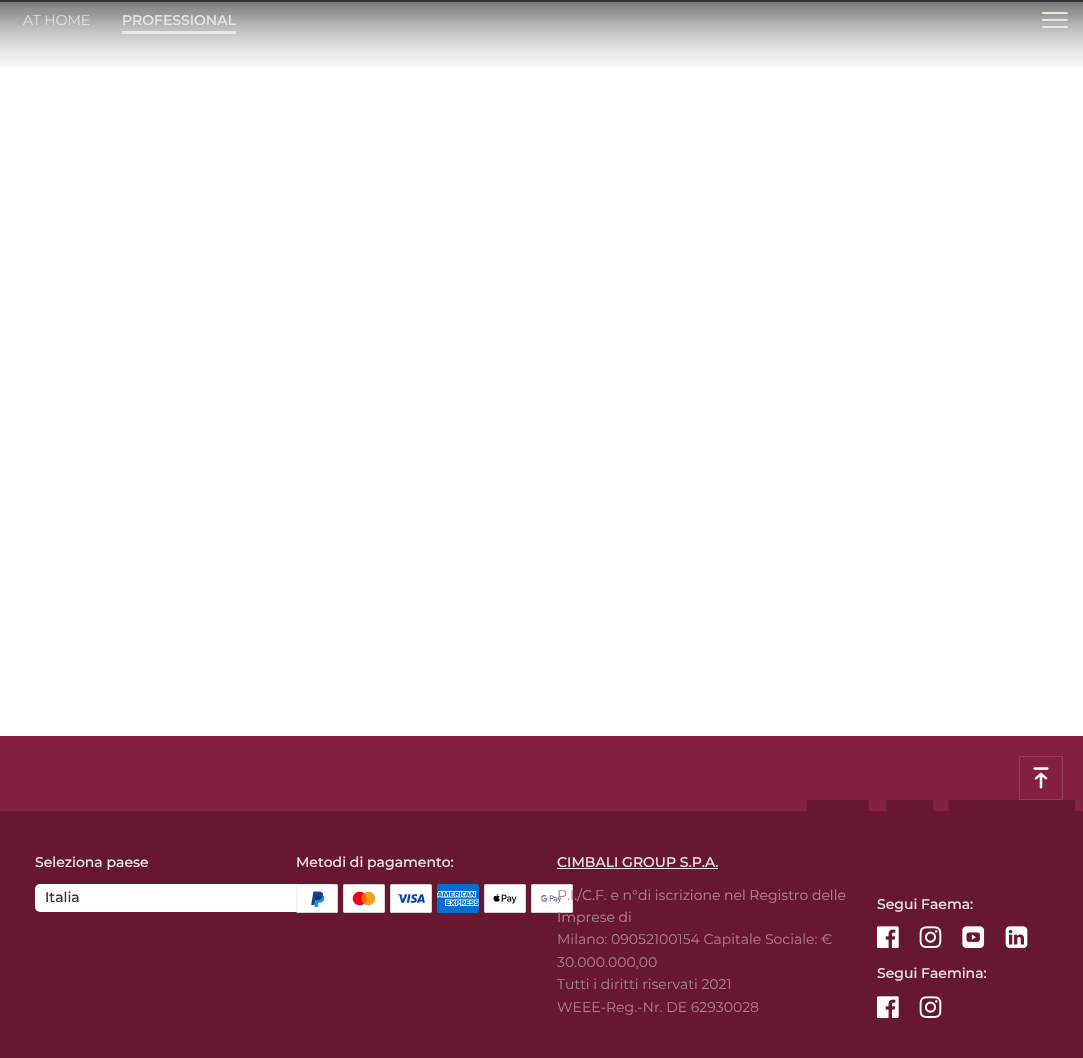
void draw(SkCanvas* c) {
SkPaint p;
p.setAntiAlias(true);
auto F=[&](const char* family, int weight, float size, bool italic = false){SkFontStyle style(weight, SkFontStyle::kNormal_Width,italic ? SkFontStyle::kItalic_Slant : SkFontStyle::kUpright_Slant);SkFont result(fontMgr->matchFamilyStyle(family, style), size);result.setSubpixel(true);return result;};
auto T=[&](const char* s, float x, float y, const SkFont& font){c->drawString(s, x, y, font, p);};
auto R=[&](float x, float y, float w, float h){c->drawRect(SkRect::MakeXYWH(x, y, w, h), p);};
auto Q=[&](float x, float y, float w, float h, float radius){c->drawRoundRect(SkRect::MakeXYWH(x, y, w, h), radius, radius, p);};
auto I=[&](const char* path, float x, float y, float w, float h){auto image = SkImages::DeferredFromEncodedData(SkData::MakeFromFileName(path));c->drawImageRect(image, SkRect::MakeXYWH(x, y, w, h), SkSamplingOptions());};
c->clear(0xffffffff);
p.setColor(0xff6c7079);
R(0,0,1083,2);
{
const SkColor colors[] = {0x00000000,0x03000000,0x08000000,0x12000000,0x1c000000,0x29000000,0x38000000,0x45000000,0x54000000,0x63000000,0x70000000,0x7d000000,0x85000000,0x8a000000,0x8c000000};
const float stops[] = {0,.09,.19,.28,.38,.48,.57,.66,.74,.81,.88,.93,.97,.99,1};
const SkPoint ends[] = {{542,79}, {542,0}};
p.setShader(SkGradientShader::MakeLinear(ends, colors, stops, 15, SkTileMode::kClamp));
p.setAlpha(255);
}
R(0,0,1083,67);
auto f1 = F("Montserrat",300,14);
p.setShader(nullptr);
p.setColor(0xffe7e7e0);
T("AT HOME",23,25,f1);
auto f2 = F("Montserrat",500,14);
T("PROFESSIONAL",122,25,f2);
R(122,31,114,3);
Q(1042,19,26,2,1);
Q(1042,12,26,2,1);
Q(1042,26,26,2,1);
p.setColor(0xff862041);
R(0,736,1083,75);
p.setStroke(true);
p.setStrokeWidth(1);
p.setColor(0xff953e59);
c->drawRect(SkRect::MakeXYWH(1019.5,756.5,43,43),p);
I("1.png",1033,767,16,22);
I("2.png",807,800,268,11);
p.setStroke(false);
p.setColor(0xff671730);
R(0,811,1083,247);
p.setColor(0xffe7e7e0);
T("Seleziona paese",35,867,f2);
p.setColor(0xffffffff);
Q(35,884,300,28,5);
p.setColor(0xff333333);
T("Italia",45,902,f2);
p.setColor(0xffe7e7e0);
T("Metodi di pagamento:",296,867,f2);
I("3.png",296,884,42,29);
I("4.png",343,884,42,29);
I("5.png",390,884,42,29);
I("6.png",437,884,42,29);
I("7.png",484,884,42,29);
I("8.png",531,884,42,29);
T("CIMBALI GROUP S.P.A.",557,867,f2);
R(557,868,161,1);
auto f3 = F("Montserrat",400,14);
p.setColor(0xffab858d);
T("P.I./C.F. e n°di iscrizione nel Registro delle",557,900,f3);
T("Imprese di",557,922,f3);
p.setColor(0xffa77f88);
T("Milano: 09052100154 Capitale Sociale: €",557,944,f3);
T("30.000.000,00",557,967,f3);
T("Tutti i diritti riservati 2021",557,989,f3);
T("WEEE-Reg.-Nr. DE 62930028",557,1012,f3);
p.setColor(0xffe7e7e0);
T("Segui Faema:",877,909,f2);
I("9.png",877,926,22,22);
I("10.png",919,926,23,22);
I("11.png",962,926,23,22);
I("12.png",1005,926,23,22);
T("Segui Faemina:",877,978,f2);
I("9.png",877,996,22,22);
I("10.png",919,996,23,22);
}
